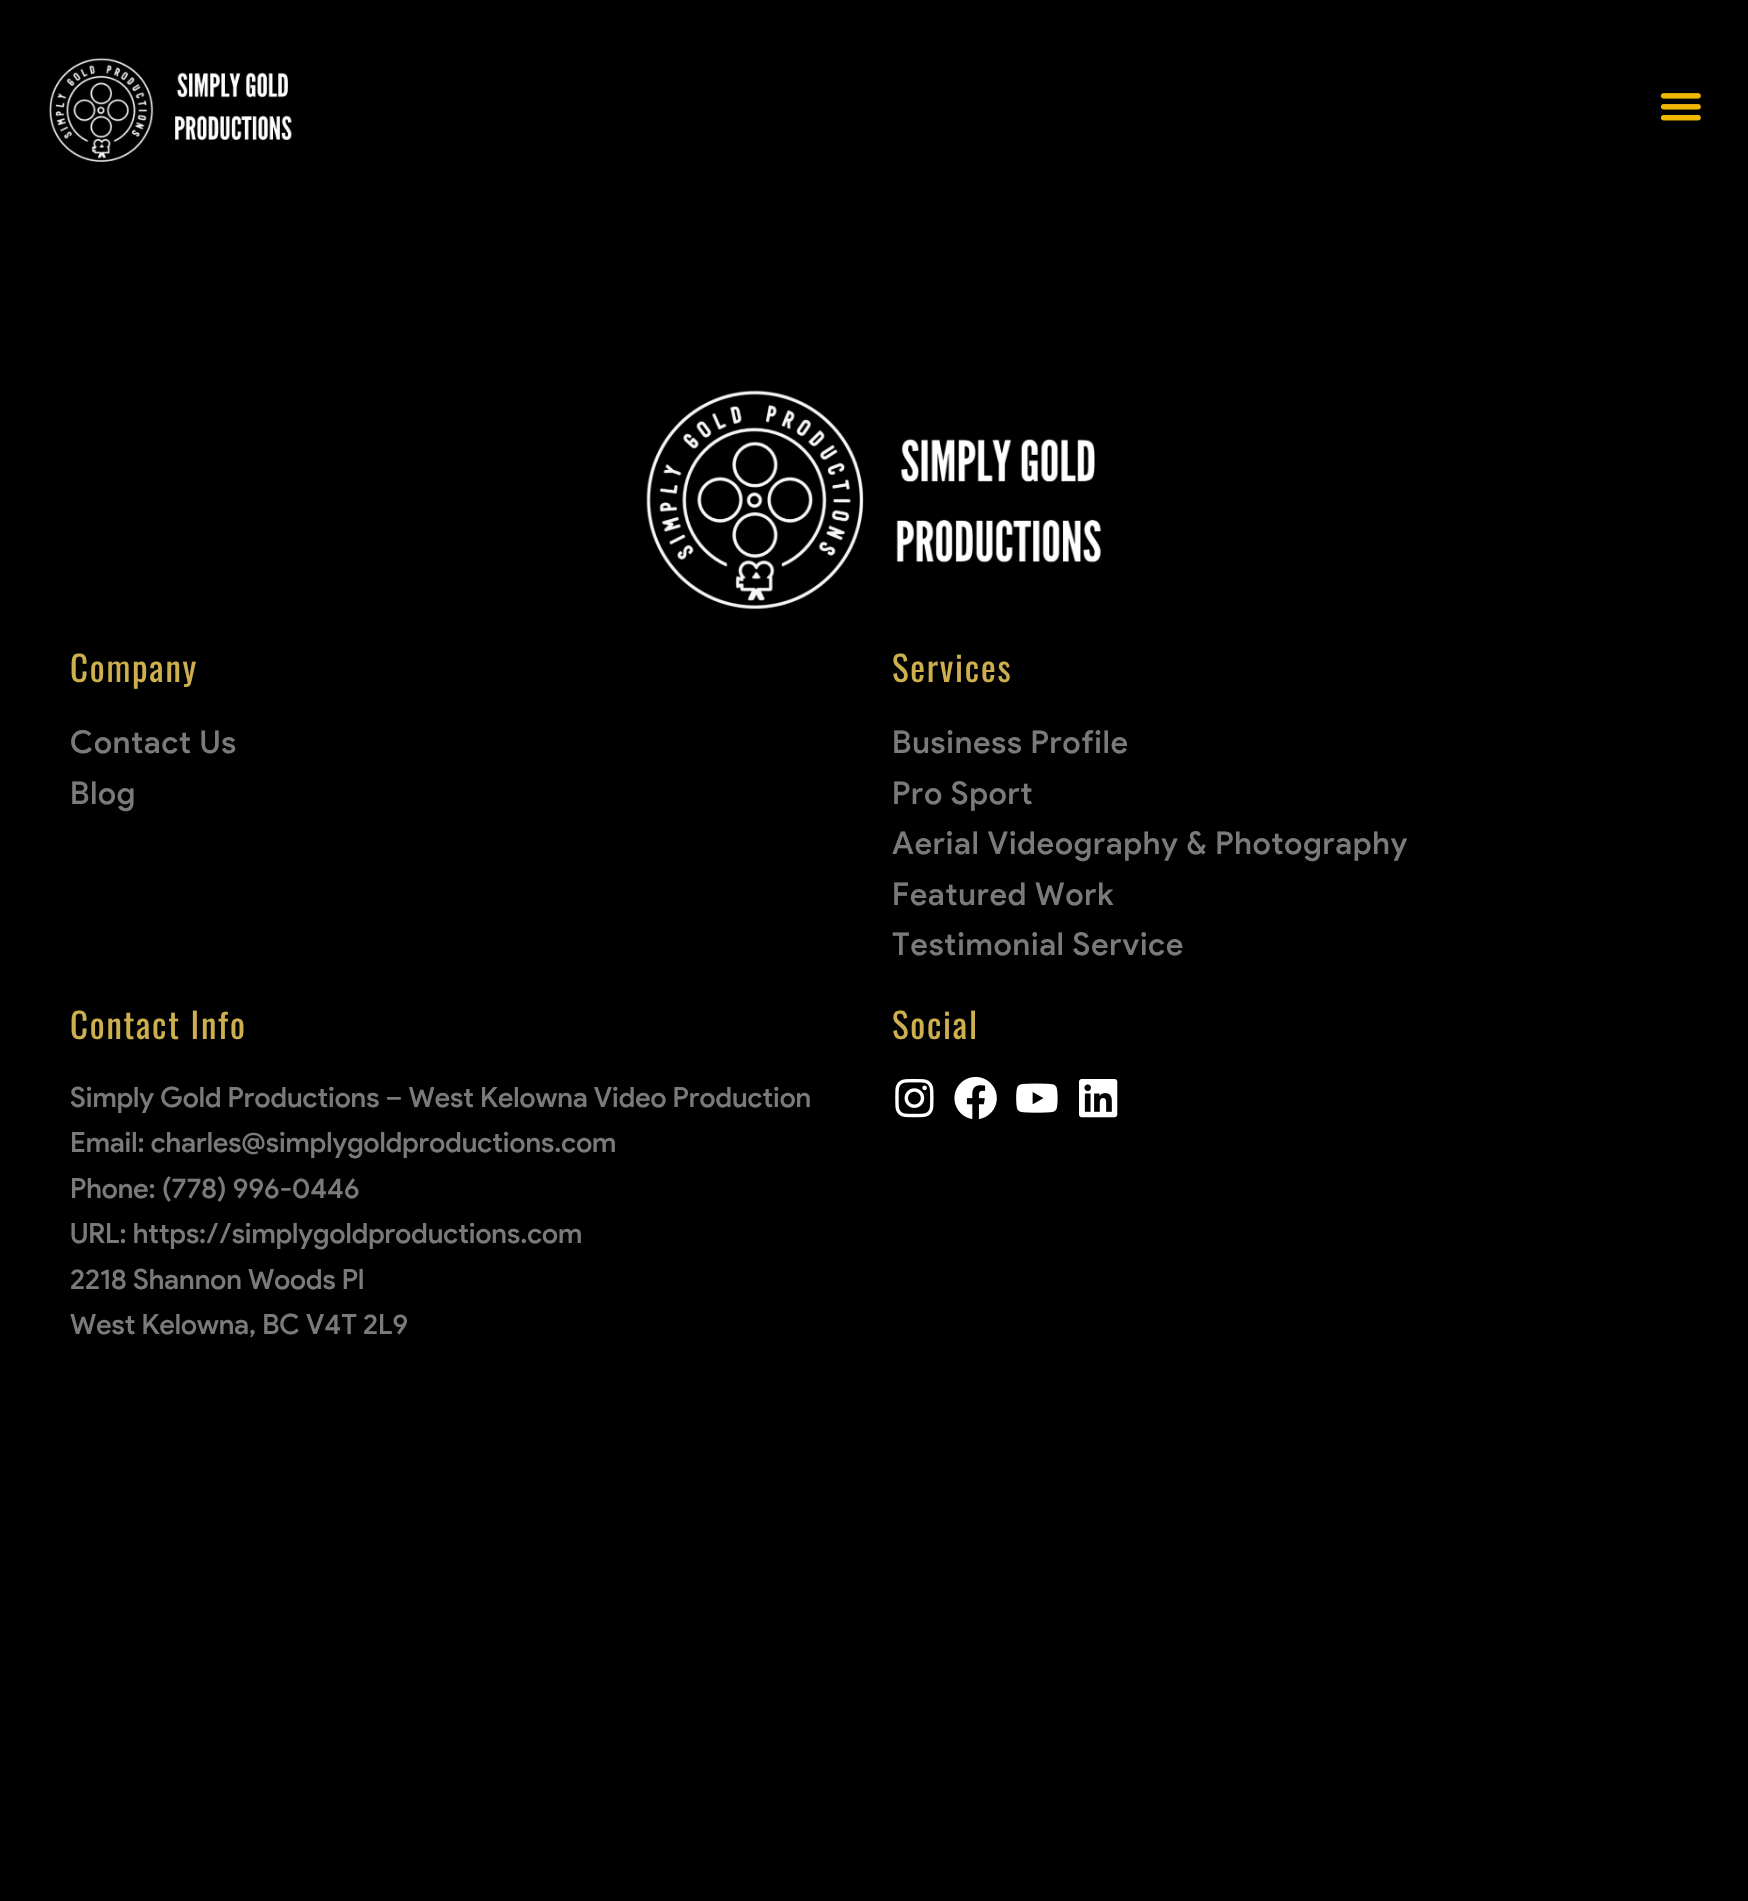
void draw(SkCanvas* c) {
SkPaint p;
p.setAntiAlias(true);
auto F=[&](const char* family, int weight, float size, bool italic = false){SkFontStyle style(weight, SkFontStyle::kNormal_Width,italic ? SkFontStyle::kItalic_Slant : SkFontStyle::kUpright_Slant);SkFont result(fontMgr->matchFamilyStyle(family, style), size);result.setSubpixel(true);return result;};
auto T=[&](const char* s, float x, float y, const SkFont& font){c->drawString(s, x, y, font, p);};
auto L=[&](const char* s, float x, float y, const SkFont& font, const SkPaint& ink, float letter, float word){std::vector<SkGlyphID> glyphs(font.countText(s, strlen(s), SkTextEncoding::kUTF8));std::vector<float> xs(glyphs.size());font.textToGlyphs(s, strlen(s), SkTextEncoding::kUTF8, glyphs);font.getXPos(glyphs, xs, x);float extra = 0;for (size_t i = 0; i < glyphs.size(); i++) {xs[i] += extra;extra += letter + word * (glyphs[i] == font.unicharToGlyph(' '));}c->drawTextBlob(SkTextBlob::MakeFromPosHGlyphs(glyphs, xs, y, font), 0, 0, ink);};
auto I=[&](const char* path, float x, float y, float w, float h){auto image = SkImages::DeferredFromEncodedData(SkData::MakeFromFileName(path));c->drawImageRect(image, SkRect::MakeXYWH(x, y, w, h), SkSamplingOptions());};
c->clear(0xff000000);
I("1.png",49,58,243,104);
I("2.png",1660,93,41,28);
I("3.png",646,390,456,220);
auto f1 = F("Oswald",400,35);
p.setColor(0xffcdaf4e);
L("Company",70,682,f1,p,1.75,0);
auto f2 = F("Product Sans",500,31.5);
p.setColor(0xff7a7a7a);
L("Contact Us",70,753,f2,p,.9,0);
L("Blog",70,804,f2,p,.9,0);
p.setColor(0xffcdaf4e);
L("Services",892,682,f1,p,1.75,0);
p.setColor(0xff7a7a7a);
L("Business Profile",892,753,f2,p,.9,0);
L("Pro Sport",892,804,f2,p,.9,0);
L("Aerial Videography & Photography",892,854,f2,p,.9,0);
L("Featured Work",892,905,f2,p,.9,0);
L("Testimonial Service",892,955,f2,p,.9,0);
p.setColor(0xffcdaf4e);
L("Contact Info",70,1039,f1,p,1.75,0);
auto f3 = F("Product Sans",500,28);
p.setColor(0xff7a7a7a);
T("Simply Gold Productions – West Kelowna Video Production",70,1107,f3);
T("Email: charles@simplygoldproductions.com",70,1152,f3);
T("Phone: (778) 996-0446",70,1198,f3);
T("URL: https://simplygoldproductions.com",70,1243,f3);
T("2218 Shannon Woods Pl",70,1289,f3);
T("West Kelowna, BC V4T 2L9",70,1334,f3);
p.setColor(0xffcdaf4e);
L("Social",892,1039,f1,p,1.75,0);
I("4.png",895,1079,39,39);
I("5.png",954,1076,43,43);
I("6.png",1016,1083,42,30);
I("7.png",1079,1079,39,39);
}
